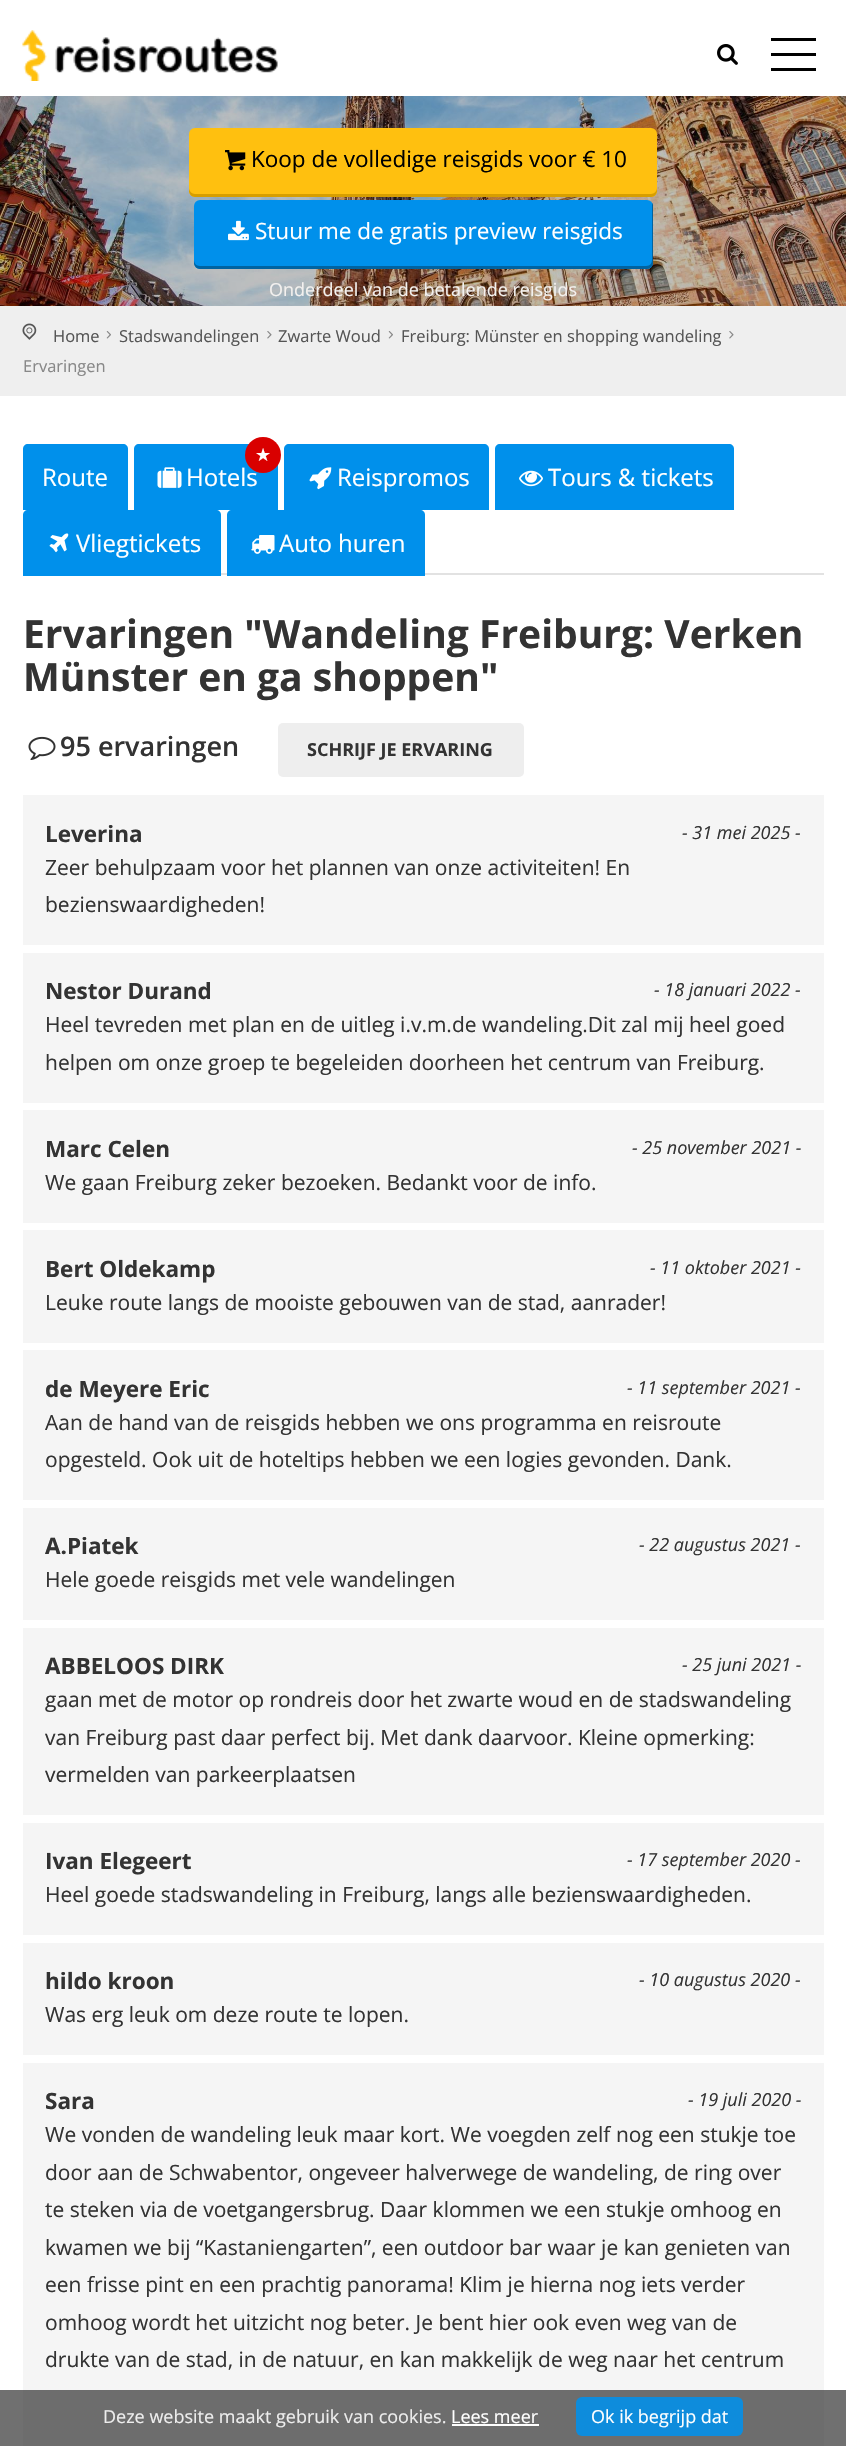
void draw(SkCanvas* c) {
SkPaint p;
p.setAntiAlias(true);
auto F=[&](const char* family, int weight, float size, bool italic = false){SkFontStyle style(weight, SkFontStyle::kNormal_Width,italic ? SkFontStyle::kItalic_Slant : SkFontStyle::kUpright_Slant);SkFont result(fontMgr->matchFamilyStyle(family, style), size);result.setSubpixel(true);return result;};
auto T=[&](const char* s, float x, float y, const SkFont& font){c->drawString(s, x, y, font, p);};
auto R=[&](float x, float y, float w, float h){c->drawRect(SkRect::MakeXYWH(x, y, w, h), p);};
auto Q=[&](float x, float y, float w, float h, float radius){c->drawRoundRect(SkRect::MakeXYWH(x, y, w, h), radius, radius, p);};
auto I=[&](const char* path, float x, float y, float w, float h){auto image = SkImages::DeferredFromEncodedData(SkData::MakeFromFileName(path));c->drawImageRect(image, SkRect::MakeXYWH(x, y, w, h), SkSamplingOptions());};
auto P=[&](const char* data, bool evenOdd = false){SkPath result = *SkParsePath::FromSVGString(data);if (evenOdd) result.setFillType(SkPathFillType::kEvenOdd);return result;};
c->clear(0xffffffff);
I("1.png",22,30,256,51);
I("2.png",717,44,21,21);
p.setColor(0xff000000);
R(771,53,45,3);
R(771,38,45,3);
R(771,68,45,3);
I("3.png",0,96,846,210);
p.setColor(0xffffc00f);
Q(189,128,468,69,6);
p.setColor(0xffd79e00);
c->drawPath(P("M189 188v3c0 3 3 6 6 6h456c3 0 6-3 6-6v-3c0 3-3 6-6 6h-456c-3 0-6-3-6-6z"),p);
I("4.png",225,150,21,21);
auto f1 = F("Open Sans",400,22.5);
p.setColor(0xff000000);
T("Koop de volledige reisgids voor € 10",251,167,f1);
p.setColor(0xff0090eb);
Q(194,200,459,69,6);
p.setColor(0xff0063a1);
c->drawPath(P("M194 260v3c0 3 3 6 6 6h447c3 0 6-3 6-6v-57c0-1 0-2-1-3v57c0 3-2 6-6 6h-446c-4 0-6-3-6-6z"),p);
I("5.png",228,220,21,21);
p.setColor(0xffffffff);
T("Stuur me de gratis preview reisgids",255,239,f1);
auto f2 = F("Open Sans",400,18);
p.setColor(0xfff3f1ef);
T("Onderdeel van de betalende reisgids",269,296,f2);
p.setColor(0xffefefef);
R(0,306,846,90);
I("6.png",22,323,15,17);
auto f3 = F("Open Sans",400,16.5);
p.setColor(0xff555555);
T("Home",53,342,f3);
I("7.png",106,331,5,8);
T("Stadswandelingen",119,342,f3);
I("8.png",267,331,5,8);
T("Zwarte Woud",278,342,f3);
I("7.png",388,331,5,8);
T("Freiburg: Münster en shopping wandeling",401,342,f3);
I("8.png",729,331,5,8);
p.setColor(0xff888888);
T("Ervaringen",23,372,f3);
p.setColor(0xff0090eb);
c->drawPath(P("M28 444h95c3 0 5 2 5 5v61h-105v-61c0-3 2-5 5-5z"),p);
auto f4 = F("Open Sans",400,24);
p.setColor(0xffffffff);
T("Route",42,486,f4);
p.setColor(0xff0090eb);
c->drawPath(P("M139 444h134c3 0 5 2 5 5v61h-144v-61c0-3 2-5 5-5z"),p);
p.setColor(0xffffffff);
T("Hotels",186,486,f4);
p.setColor(0xffd90000);
c->drawCircle(263,455,18,p);
auto f5 = F("DejaVu Sans",400,18);
p.setColor(0xffffffff);
T("★",255,461,f5);
I("9.png",157,467,25,21);
p.setColor(0xff0090eb);
c->drawPath(P("M289 444h195c3 0 5 2 5 5v61h-205v-61c0-3 2-5 5-5z"),p);
I("10.png",309,467,23,23);
p.setColor(0xffffffff);
T("Reispromos",337,486,f4);
p.setColor(0xff0090eb);
c->drawPath(P("M500 444h229c3 0 5 2 5 5v61h-239v-61c0-3 2-5 5-5z"),p);
I("11.png",519,470,24,17);
p.setColor(0xffffffff);
T("Tours & tickets",548,486,f4);
p.setColor(0xff0090eb);
c->drawPath(P("M28 510h188c3 0 5 2 5 5v61h-198v-61c0-3 2-5 5-5z"),p);
I("12.png",49,533,20,20);
p.setColor(0xffffffff);
T("Vliegtickets",76,552,f4);
p.setColor(0xffe2e2e2);
R(221,573,603,2);
p.setColor(0xff0090eb);
c->drawPath(P("M232 510h188c3 0 5 2 5 5v61h-198v-61c0-3 2-5 5-5z"),p);
I("13.png",251,535,24,19);
p.setColor(0xffffffff);
T("Auto huren",279,552,f4);
auto f6 = F("Open Sans",700,39);
p.setColor(0xff333333);
T("Ervaringen \"Wandeling Freiburg: Verken",23,648,f6);
T("Münster en ga shoppen\"",23,691,f6);
I("14.png",28,736,28,24);
auto f7 = F("Open Sans",600,27);
T("95 ervaringen",60,756,f7);
p.setColor(0xffeeeeee);
Q(278,723,246,54,5);
auto f8 = F("Open Sans",700,18);
p.setColor(0xff333333);
T("SCHRIJF JE ERVARING",307,756,f8);
p.setColor(0xfff5f5f5);
R(23,795,801,150);
auto f9 = F("Open Sans",700,22.5);
p.setColor(0xff333333);
T("Leverina",45,842,f9);
auto f10 = F("Open Sans",400,18,true);
T("- 31 mei 2025 -",682,839,f10);
auto f11 = F("Open Sans",400,21);
T("Zeer behulpzaam voor het plannen van onze activiteiten! En",45,875,f11);
T("bezienswaardigheden!",45,912,f11);
p.setColor(0xfff5f5f5);
R(23,953,801,150);
p.setColor(0xff333333);
T("Nestor Durand",45,999,f9);
T("- 18 januari 2022 -",654,996,f10);
T("Heel tevreden met plan en de uitleg i.v.m.de wandeling.Dit zal mij heel goed",45,1032,f11);
T("helpen om onze groep te begeleiden doorheen het centrum van Freiburg.",45,1070,f11);
p.setColor(0xfff5f5f5);
R(23,1110,801,113);
p.setColor(0xff333333);
T("Marc Celen",45,1157,f9);
T("- 25 november 2021 -",632,1154,f10);
T("We gaan Freiburg zeker bezoeken. Bedankt voor de info.",45,1190,f11);
p.setColor(0xfff5f5f5);
R(23,1230,801,113);
p.setColor(0xff333333);
T("Bert Oldekamp",45,1277,f9);
T("- 11 oktober 2021 -",650,1274,f10);
T("Leuke route langs de mooiste gebouwen van de stad, aanrader!",45,1310,f11);
p.setColor(0xfff5f5f5);
R(23,1350,801,150);
p.setColor(0xff333333);
T("de Meyere Eric",45,1397,f9);
T("- 11 september 2021 -",627,1394,f10);
T("Aan de hand van de reisgids hebben we ons programma en reisroute",45,1430,f11);
T("opgesteld. Ook uit de hoteltips hebben we een logies gevonden. Dank.",45,1467,f11);
p.setColor(0xfff5f5f5);
R(23,1508,801,112);
p.setColor(0xff333333);
T("A.Piatek",45,1554,f9);
T("- 22 augustus 2021 -",639,1551,f10);
T("Hele goede reisgids met vele wandelingen",45,1587,f11);
p.setColor(0xfff5f5f5);
R(23,1628,801,187);
p.setColor(0xff333333);
T("ABBELOOS DIRK",45,1674,f9);
T("- 25 juni 2021 -",682,1671,f10);
T("gaan met de motor op rondreis door het zwarte woud en de stadswandeling",45,1707,f11);
T("van Freiburg past daar perfect bij. Met dank daarvoor. Kleine opmerking:",45,1745,f11);
T("vermelden van parkeerplaatsen",45,1782,f11);
p.setColor(0xfff5f5f5);
R(23,1823,801,112);
p.setColor(0xff333333);
T("Ivan Elegeert",45,1869,f9);
T("- 17 september 2020 -",627,1866,f10);
T("Heel goede stadswandeling in Freiburg, langs alle bezienswaardigheden.",45,1902,f11);
p.setColor(0xfff5f5f5);
R(23,1943,801,112);
p.setColor(0xff333333);
T("hildo kroon",45,1989,f9);
T("- 10 augustus 2020 -",639,1986,f10);
T("Was erg leuk om deze route te lopen.",45,2022,f11);
p.setColor(0xfff5f5f5);
R(23,2063,801,383);
p.setColor(0xff333333);
T("Sara",45,2109,f9);
T("- 19 juli 2020 -",688,2106,f10);
T("We vonden de wandeling leuk maar kort. We voegden zelf nog een stukje toe",45,2142,f11);
T("door aan de Schwabentor, ongeveer halverwege de wandeling, de ring over",45,2180,f11);
T("te steken via de voetgangersbrug. Daar klommen we een stukje omhoog en",45,2217,f11);
T("kwamen we bij “Kastaniengarten”, een outdoor bar waar je kan genieten van",45,2255,f11);
T("een frisse pint en een prachtig panorama! Klim je hierna nog iets verder",45,2292,f11);
T("omhoog wordt het uitzicht nog beter. Je bent hier ook even weg van de",45,2330,f11);
T("drukte van de stad, in de natuur, en kan makkelijk de weg naar het centrum",45,2367,f11);
p.setColor(0xb3333333);
R(0,2390,846,56);
p.setColor(0xffededed);
T("Deze website maakt gebruik van cookies.",103,2423,f2);
p.setColor(0xffffffff);
T("Lees meer",451,2423,f2);
p.setColor(0xfffefefe);
R(452,2424,87,2);
p.setColor(0xe00090eb);
Q(576,2397,167,39,6);
p.setColor(0xffffffff);
T("Ok ik begrijp dat",591,2423,f2);
}
